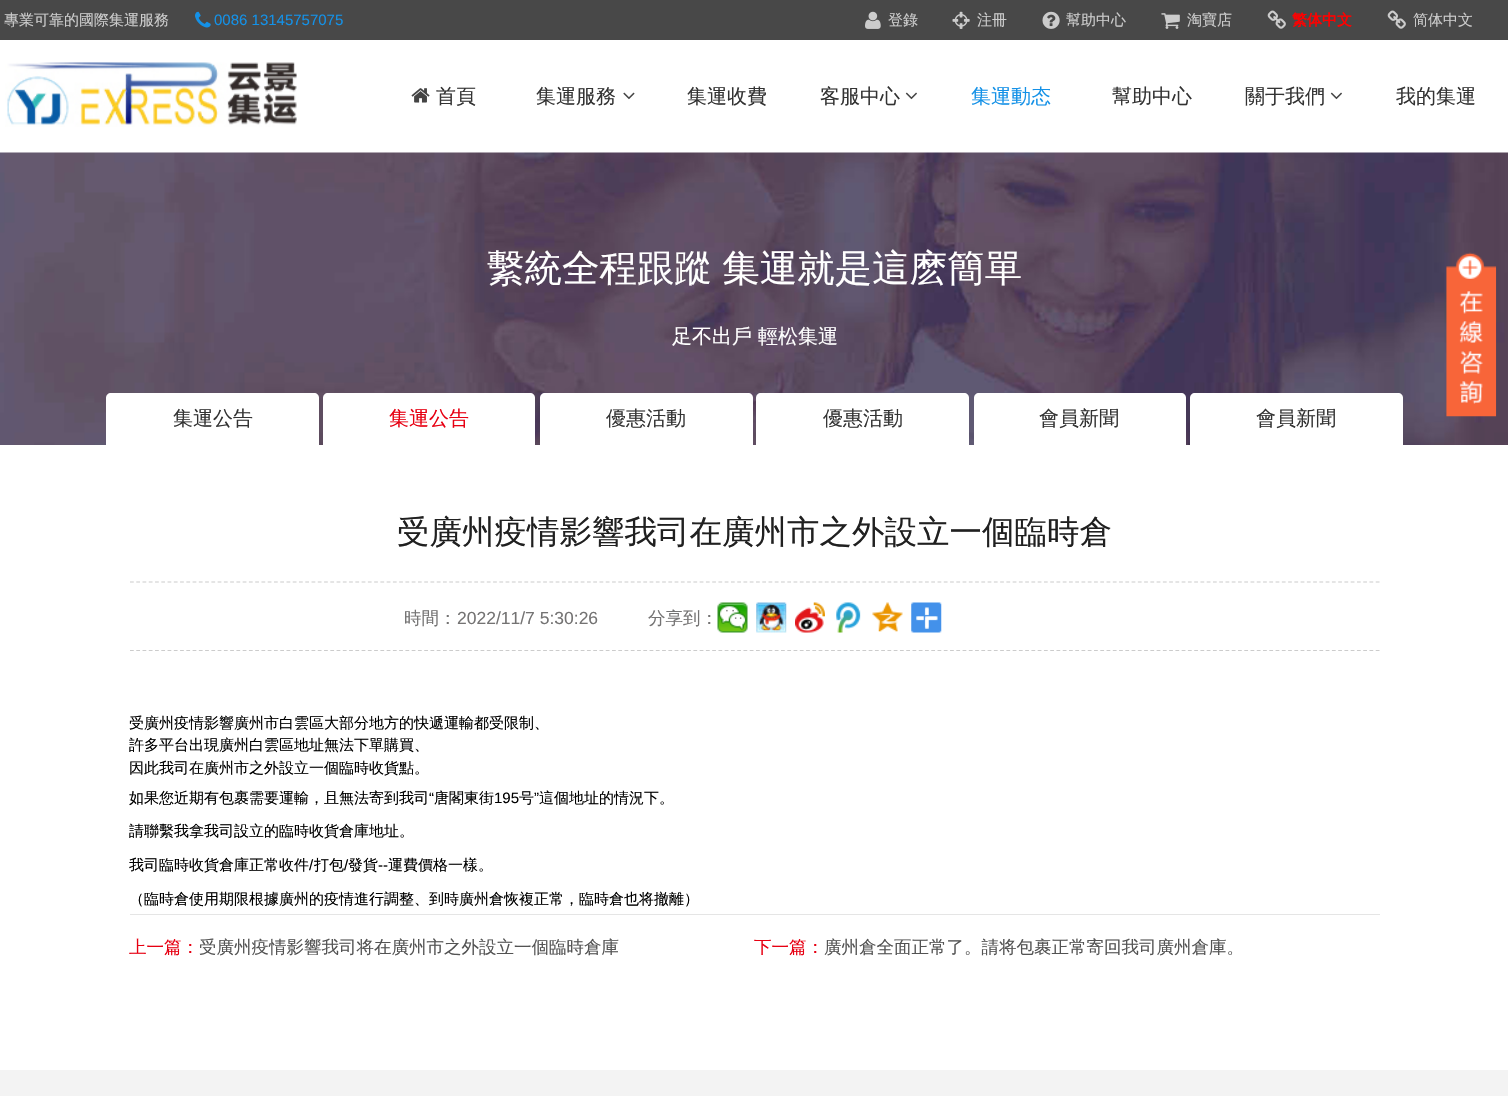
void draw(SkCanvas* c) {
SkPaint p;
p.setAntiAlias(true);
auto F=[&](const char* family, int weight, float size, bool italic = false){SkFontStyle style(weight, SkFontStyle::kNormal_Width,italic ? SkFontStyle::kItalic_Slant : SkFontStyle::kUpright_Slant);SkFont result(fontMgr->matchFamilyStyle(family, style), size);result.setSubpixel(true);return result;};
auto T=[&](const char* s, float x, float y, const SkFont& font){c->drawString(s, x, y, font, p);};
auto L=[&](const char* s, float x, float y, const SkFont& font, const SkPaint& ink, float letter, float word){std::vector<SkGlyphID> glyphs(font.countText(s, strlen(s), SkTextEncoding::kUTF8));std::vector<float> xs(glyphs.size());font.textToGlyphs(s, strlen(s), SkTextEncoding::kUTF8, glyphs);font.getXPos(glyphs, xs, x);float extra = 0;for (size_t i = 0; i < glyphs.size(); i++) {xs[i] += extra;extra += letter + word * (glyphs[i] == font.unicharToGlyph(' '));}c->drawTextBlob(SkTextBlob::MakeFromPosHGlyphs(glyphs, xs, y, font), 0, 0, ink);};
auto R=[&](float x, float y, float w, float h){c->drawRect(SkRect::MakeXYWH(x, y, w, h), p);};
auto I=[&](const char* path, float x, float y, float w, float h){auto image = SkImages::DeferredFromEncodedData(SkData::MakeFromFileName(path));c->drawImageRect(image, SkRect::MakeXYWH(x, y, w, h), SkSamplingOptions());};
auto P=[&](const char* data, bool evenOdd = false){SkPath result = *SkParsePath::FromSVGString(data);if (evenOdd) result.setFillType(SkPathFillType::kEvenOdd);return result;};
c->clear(0xffffffff);
p.setColor(0xff484848);
R(0,0,1508,40);
auto f1 = F("WenQuanYi Zen Hei",500,15);
p.setColor(0xffcccccc);
T("專業可靠的國際集運服務",4,25,f1);
I("1.png",195,11,16,17);
auto f2 = F("Liberation Sans",400,15);
p.setColor(0xff1491e7);
T("0086 13145757075",214,25,f2);
I("2.png",865,11,16,18);
p.setColor(0xffcccccc);
T("登錄",888,25,f1);
I("3.png",952,11,18,18);
T("注冊",977,25,f1);
I("4.png",1042,11,18,18);
T("幫助中心",1066,25,f1);
I("5.png",1161,13,19,16);
T("淘寶店",1187,25,f1);
I("6.png",1267,10,19,19);
auto f3 = F("WenQuanYi Zen Hei",700,15);
p.setColor(0xffff0000);
T("繁体中文",1292,25,f3);
I("6.png",1387,10,19,19);
p.setColor(0xffcccccc);
T("简体中文",1413,25,f1);
I("7.png",5,62,292,65);
I("8.png",411,88,19,15);
auto f4 = F("WenQuanYi Zen Hei",500,20);
p.setColor(0xff333333);
T("首頁",436,103,f4);
T("集運服務",536,103,f4);
I("9.png",623,92,12,8);
T("集運收費",687,103,f4);
T("客服中心",820,103,f4);
I("10.png",905,92,12,8);
p.setColor(0xff1491e7);
T("集運動态",971,103,f4);
p.setColor(0xff333333);
T("幫助中心",1112,103,f4);
T("關于我們",1245,103,f4);
I("10.png",1330,92,12,8);
T("我的集運",1396,103,f4);
I("11.png",0,152,1508,293);
auto f5 = F("WenQuanYi Zen Hei",500,37.5);
p.setColor(0xffffffff);
L("繫統全程跟蹤 集運就是這麽簡單",487,281,f5,p,0,-1);
T("足不出戶 輕松集運",672,343,f4);
I("12.png",1446,252,51,165);
c->drawPath(P("M111 393h203c3 0 5 2 5 5v47h-213v-47c0-3 2-5 5-5z"),p);
p.setColor(0xff333333);
T("集運公告",173,425,f4);
p.setColor(0xffffffff);
c->drawPath(P("M328 393h202c3 0 5 2 5 5v47h-212v-47c0-3 2-5 5-5z"),p);
p.setColor(0xffe70012);
T("集運公告",389,425,f4);
p.setColor(0xffffffff);
c->drawPath(P("M545 393h203c3 0 5 2 5 5v47h-213v-47c0-3 2-5 5-5z"),p);
p.setColor(0xff333333);
T("優惠活動",606,425,f4);
p.setColor(0xffffffff);
c->drawPath(P("M761 393h203c3 0 5 2 5 5v47h-213v-47c0-3 2-5 5-5z"),p);
p.setColor(0xff333333);
T("優惠活動",823,425,f4);
p.setColor(0xffffffff);
c->drawPath(P("M979 393h202c3 0 5 2 5 5v47h-212v-47c0-3 2-5 5-5z"),p);
p.setColor(0xff333333);
T("會員新聞",1039,425,f4);
p.setColor(0xffffffff);
c->drawPath(P("M1195 393h203c3 0 5 2 5 5v47h-213v-47c0-3 2-5 5-5z"),p);
p.setColor(0xff333333);
T("會員新聞",1256,425,f4);
auto f6 = F("WenQuanYi Zen Hei",500,32.5);
p.setColor(0xff202020);
T("受廣州疫情影響我司在廣州市之外設立一個臨時倉",397,543,f6);
p.setStroke(true);
p.setStrokeWidth(1.2);
p.setColor(0xffcccccc);
p.setPathEffect(SkDashPathEffect::Make({{3.75f,2.51f}}, 0));
c->drawPath(P("M130 582h1250"),p);
p.setPathEffect(nullptr);
p.setPathEffect(SkDashPathEffect::Make({{3.75f,2.51f}}, 0));
c->drawPath(P("M130 650.5h1250"),p);
p.setPathEffect(nullptr);
auto f7 = F("WenQuanYi Zen Hei",500,17.5);
p.setStroke(false);
p.setColor(0xff747373);
T("時間：",404,624,f7);
auto f8 = F("Liberation Sans",400,17.5);
T("2022/11/7 5:30:26",457,624,f8);
T("分享到：",648,624,f7);
I("13.png",717,602,31,31);
I("14.png",756,602,31,31);
I("15.png",795,602,30,31);
I("16.png",836,602,25,31);
I("17.png",872,602,31,30);
I("18.png",911,602,31,31);
p.setColor(0xff000000);
T("受廣州疫情影響廣州市白雲區大部分地方的快遞運輸都受限制、",129,728,f1);
T("許多平台出現廣州白雲區地址無法下單購買、",129,750,f1);
T("因此我司在廣州市之外設立一個臨時收貨點。",129,773,f1);
T("如果您近期有包裹需要運輸，且無法寄到我司",129,803,f1);
T("“",429,803,f2);
T("唐閣東街",434,803,f1);
T("195",494,803,f2);
T("号",519,803,f1);
T("”",534,803,f2);
T("這個地址的情況下。",539,803,f1);
T("請聯繫我拿我司設立的臨時收貨倉庫地址。",129,836,f1);
T("我司臨時收貨倉庫正常收件",129,870,f1);
T("/",309,870,f2);
T("打包",314,870,f1);
T("/",344,870,f2);
T("發貨",348,870,f1);
T("--",378,870,f2);
T("運費價格一樣。",388,870,f1);
T("（臨時倉使用期限根據廣州的疫情進行調整、到時廣州倉恢複正常，臨時倉也将撤離）",129,904,f1);
p.setColor(0xffe5e5e5);
R(130,914,1250,1);
p.setColor(0xffe70012);
T("上一篇：",129,953,f7);
p.setColor(0xff535353);
T("受廣州疫情影響我司将在廣州市之外設立一個臨時倉庫",199,953,f7);
p.setColor(0xffe70012);
T("下一篇：",754,953,f7);
p.setColor(0xff535353);
T("廣州倉全面正常了。請将包裹正常寄回我司廣州倉庫。",824,953,f7);
p.setColor(0xfff3f3f3);
R(0,1070,1508,26);
}
